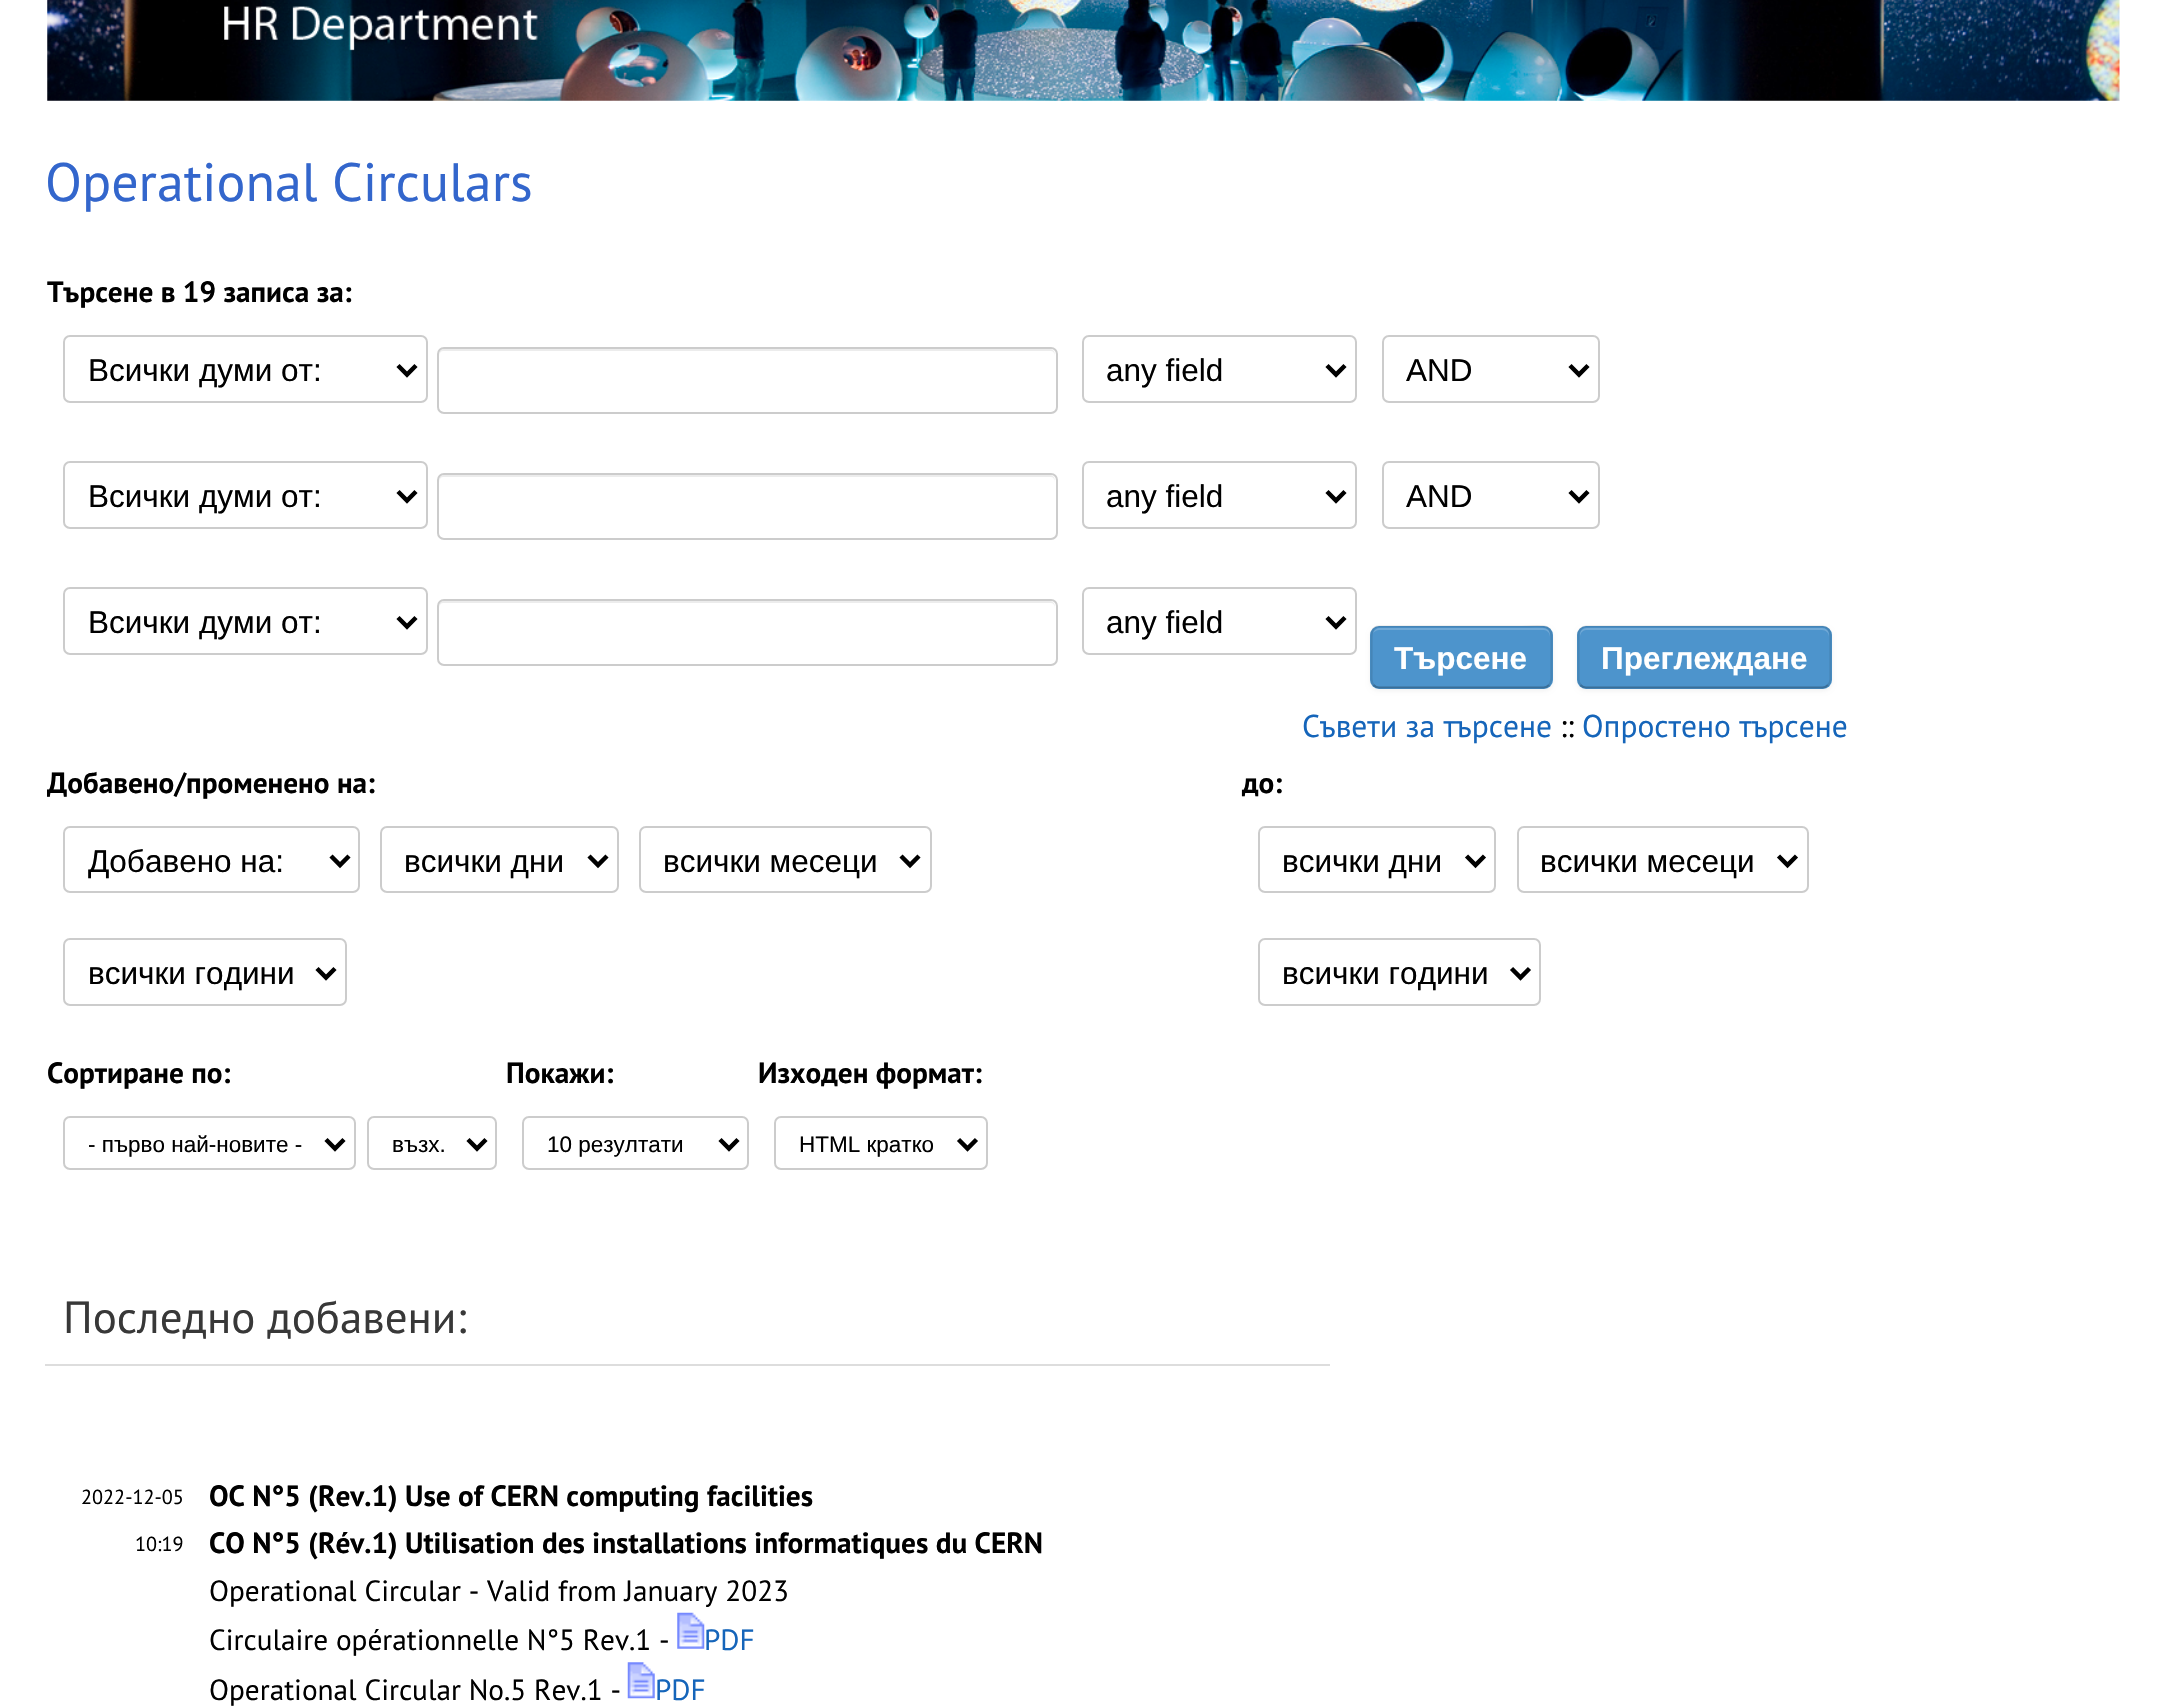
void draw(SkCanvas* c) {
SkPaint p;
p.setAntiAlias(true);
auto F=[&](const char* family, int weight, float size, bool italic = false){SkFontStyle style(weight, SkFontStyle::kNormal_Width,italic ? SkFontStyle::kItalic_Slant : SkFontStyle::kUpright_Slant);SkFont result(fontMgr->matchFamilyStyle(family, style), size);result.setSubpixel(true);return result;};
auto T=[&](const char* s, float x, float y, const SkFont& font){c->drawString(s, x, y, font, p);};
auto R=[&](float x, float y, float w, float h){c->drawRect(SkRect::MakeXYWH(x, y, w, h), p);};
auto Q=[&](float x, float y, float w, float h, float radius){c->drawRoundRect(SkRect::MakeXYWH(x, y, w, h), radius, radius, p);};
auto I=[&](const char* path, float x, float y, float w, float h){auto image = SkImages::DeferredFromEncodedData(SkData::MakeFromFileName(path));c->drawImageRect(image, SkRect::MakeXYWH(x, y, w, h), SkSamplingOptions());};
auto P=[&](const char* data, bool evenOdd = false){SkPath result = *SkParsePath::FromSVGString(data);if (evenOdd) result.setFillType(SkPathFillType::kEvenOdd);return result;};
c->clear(0xffffffff);
I("1.png",47,0,2073,101);
auto f1 = F("PT Sans",400,54);
p.setColor(0xff3366cc);
T("Operational Circulars",45,201,f1);
auto f2 = F("PT Sans",700,29.25);
p.setColor(0xff000000);
T("Търсене в 19 записа за:",47,302,f2);
p.setStroke(true);
p.setStrokeWidth(2);
p.setColor(0xffcccccc);
c->drawRoundRect(SkRect::MakeXYWH(64,336,363,66),6,6,p);
p.setStrokeWidth(4.5);
p.setColor(0xff000000);
c->drawPath(P("M398 365.5l9 9l9-9"),p);
auto f3 = F("Liberation Sans",400,31.5);
p.setStroke(false);
T("Всички думи от:",88,381,f3);
p.setColor(0xffececec);
c->drawPath(P("M443 351h608c2 0 4 2 4 5c0-3-1-7-5-7h-606c-4 0-5 4-5 7c0-3 2-5 4-5z"),p);
p.setStroke(true);
p.setStrokeWidth(2);
p.setColor(0xffcccccc);
c->drawRoundRect(SkRect::MakeXYWH(438,348,619,65),6,6,p);
c->drawRoundRect(SkRect::MakeXYWH(1083,336,273,66),6,6,p);
p.setStrokeWidth(4.5);
p.setColor(0xff000000);
c->drawPath(P("M1327 365.5l9 9l9-9"),p);
p.setStroke(false);
T("any field",1106,381,f3);
p.setStroke(true);
p.setStrokeWidth(2);
p.setColor(0xffcccccc);
c->drawRoundRect(SkRect::MakeXYWH(1383,336,216,66),6,6,p);
p.setStrokeWidth(4.5);
p.setColor(0xff000000);
c->drawPath(P("M1570 365.5l9 9l9-9"),p);
p.setStroke(false);
T("AND",1406,381,f3);
p.setStroke(true);
p.setStrokeWidth(2);
p.setColor(0xffcccccc);
c->drawRoundRect(SkRect::MakeXYWH(64,462,363,66),6,6,p);
p.setStrokeWidth(4.5);
p.setColor(0xff000000);
c->drawPath(P("M398 491.5l9 9l9-9"),p);
p.setStroke(false);
T("Всички думи от:",88,507,f3);
p.setColor(0xffececec);
c->drawPath(P("M443 477h608c2 0 4 2 4 5c0-3-1-7-5-7h-606c-4 0-5 4-5 7c0-3 2-5 4-5z"),p);
p.setStroke(true);
p.setStrokeWidth(2);
p.setColor(0xffcccccc);
c->drawRoundRect(SkRect::MakeXYWH(438,474,619,65),6,6,p);
c->drawRoundRect(SkRect::MakeXYWH(1083,462,273,66),6,6,p);
p.setStrokeWidth(4.5);
p.setColor(0xff000000);
c->drawPath(P("M1327 491.5l9 9l9-9"),p);
p.setStroke(false);
T("any field",1106,507,f3);
p.setStroke(true);
p.setStrokeWidth(2);
p.setColor(0xffcccccc);
c->drawRoundRect(SkRect::MakeXYWH(1383,462,216,66),6,6,p);
p.setStrokeWidth(4.5);
p.setColor(0xff000000);
c->drawPath(P("M1570 491.5l9 9l9-9"),p);
p.setStroke(false);
T("AND",1406,507,f3);
p.setStroke(true);
p.setStrokeWidth(2);
p.setColor(0xffcccccc);
c->drawRoundRect(SkRect::MakeXYWH(64,588,363,66),6,6,p);
p.setStrokeWidth(4.5);
p.setColor(0xff000000);
c->drawPath(P("M398 617.5l9 9l9-9"),p);
p.setStroke(false);
T("Всички думи от:",88,633,f3);
p.setColor(0xffececec);
c->drawPath(P("M443 603h608c2 0 4 2 4 5c0-3-1-7-5-7h-606c-4 0-5 4-5 7c0-3 2-5 4-5z"),p);
p.setStroke(true);
p.setStrokeWidth(2);
p.setColor(0xffcccccc);
c->drawRoundRect(SkRect::MakeXYWH(438,600,619,65),6,6,p);
c->drawRoundRect(SkRect::MakeXYWH(1083,588,273,66),6,6,p);
p.setStrokeWidth(4.5);
p.setColor(0xff000000);
c->drawPath(P("M1327 617.5l9 9l9-9"),p);
p.setStroke(false);
T("any field",1106,633,f3);
p.setColor(0x0d000000);
p.setMaskFilter(SkMaskFilter::MakeBlur(kNormal_SkBlurStyle, 2));
c->drawRoundRect(SkRect::MakeXYWH(1370,628,183,63),9,9,p);
p.setMaskFilter(nullptr);
p.setColor(0xff4d94cc);
Q(1370,626,183,63,9);
p.setColor(0xff71a9d6);
c->drawPath(P("M1379 630h165c3 0 6 3 6 7v-2c0-4-3-7-7-7h-163c-3 0-6 2-7 5c2-2 4-3 6-3z"),p);
p.setStroke(true);
p.setStrokeWidth(2.2);
p.setColor(0x40000000);
c->drawPath(P("M1549 685c-1.5 1.5-3.5 2.5-5.5 2.5h-164.5c-2 0-4-1-5.5-2.5"),p);
p.setColor(0x1a000000);
c->drawPath(P("M1373.5 685c-3-3.5-2-9-2-13v-30c0-6-1-15.5 7.5-15.5h137c39.5 0 35.5-5.5 35.5 30.5v15c0 4 1 9.5-2.5 13"),p);
auto f4 = F("Liberation Sans",700,31.5);
p.setStroke(false);
p.setColor(0xffffffff);
T("Търсене",1394,669,f4);
p.setColor(0x0d000000);
p.setMaskFilter(SkMaskFilter::MakeBlur(kNormal_SkBlurStyle, 2));
c->drawRoundRect(SkRect::MakeXYWH(1577,628,255,63),9,9,p);
p.setMaskFilter(nullptr);
p.setColor(0xff4d94cc);
Q(1577,626,255,63,9);
p.setColor(0xff71a9d6);
c->drawPath(P("M1586 630h236c4 0 7 3 7 7v-2c0-4-3-7-7-7h-235c-4 0-7 3-7 7v2c0-4 3-7 6-7z"),p);
p.setStroke(true);
p.setColor(0x40000000);
c->drawPath(P("M1828 685c-1.5 1.5-3.5 2.5-5.5 2.5h-236.5c-2 0-4-1-5.5-2.5"),p);
p.setColor(0x1a000000);
c->drawPath(P("M1580.5 685c-1.5-1.5-2-3.5-2-5.5v-45c0-2 .5-4 2-5.5c1.5-1.5 3.5-2.5 5.5-2.5h236.5c2 0 4 1 5.5 2.5c1.5 1.5 2.5 3.5 2.5 5.5v45c0 2-1 4-2.5 5.5"),p);
p.setStroke(false);
p.setColor(0xffffffff);
T("Преглеждане",1601,669,f4);
auto f5 = F("PT Sans",400,31.5);
p.setColor(0xff1565ba);
T("Съвети за търсене",1302,737,f5);
p.setColor(0xff000000);
T("::",1560,737,f5);
p.setColor(0xff1565ba);
T("Опростено търсене",1582,737,f5);
p.setColor(0xff000000);
T("Добавено/променено на:",47,793,f2);
T("до:",1242,793,f2);
p.setStroke(true);
p.setStrokeWidth(2);
p.setColor(0xffcccccc);
c->drawRoundRect(SkRect::MakeXYWH(64,827,295,65),6,6,p);
p.setStrokeWidth(4.5);
p.setColor(0xff000000);
c->drawPath(P("M331 856l9 9l9-9"),p);
p.setStroke(false);
T("Добавено на:",88,872,f3);
p.setStroke(true);
p.setStrokeWidth(2);
p.setColor(0xffcccccc);
c->drawRoundRect(SkRect::MakeXYWH(381,827,237,65),6,6,p);
p.setStrokeWidth(4.5);
p.setColor(0xff000000);
c->drawPath(P("M589 856l9 9l9-9"),p);
p.setStroke(false);
T("всички дни",404,872,f3);
p.setStroke(true);
p.setStrokeWidth(2);
p.setColor(0xffcccccc);
c->drawRoundRect(SkRect::MakeXYWH(640,827,291,65),6,6,p);
p.setStrokeWidth(4.5);
p.setColor(0xff000000);
c->drawPath(P("M901 856l9 9l9-9"),p);
p.setStroke(false);
T("всички месеци",663,872,f3);
p.setStroke(true);
p.setStrokeWidth(2);
p.setColor(0xffcccccc);
c->drawRoundRect(SkRect::MakeXYWH(64,939,282,66),6,6,p);
p.setStrokeWidth(4.5);
p.setColor(0xff000000);
c->drawPath(P("M317 968.5l9 9l9-9"),p);
p.setStroke(false);
T("всички години",88,984,f3);
p.setStroke(true);
p.setStrokeWidth(2);
p.setColor(0xffcccccc);
c->drawRoundRect(SkRect::MakeXYWH(1259,827,236,65),6,6,p);
p.setStrokeWidth(4.5);
p.setColor(0xff000000);
c->drawPath(P("M1466.5 856l9 9l9-9"),p);
p.setStroke(false);
T("всички дни",1282,872,f3);
p.setStroke(true);
p.setStrokeWidth(2);
p.setColor(0xffcccccc);
c->drawRoundRect(SkRect::MakeXYWH(1518,827,290,65),6,6,p);
p.setStrokeWidth(4.5);
p.setColor(0xff000000);
c->drawPath(P("M1778.5 856l9 9l9-9"),p);
p.setStroke(false);
T("всички месеци",1540,872,f3);
p.setStroke(true);
p.setStrokeWidth(2);
p.setColor(0xffcccccc);
c->drawRoundRect(SkRect::MakeXYWH(1259,939,281,66),6,6,p);
p.setStrokeWidth(4.5);
p.setColor(0xff000000);
c->drawPath(P("M1511.5 968.5l9 9l9-9"),p);
p.setStroke(false);
T("всички години",1282,984,f3);
T("Сортиране по:",47,1083,f2);
T("Покажи:",506,1083,f2);
T("Изходен формат:",758,1083,f2);
p.setStroke(true);
p.setStrokeWidth(2);
p.setColor(0xffcccccc);
c->drawRoundRect(SkRect::MakeXYWH(64,1117,291,52),6,6,p);
p.setStrokeWidth(4.5);
p.setColor(0xff000000);
c->drawPath(P("M326 1139.5l9 9l9-9"),p);
auto f6 = F("Liberation Sans",400,22.5);
p.setStroke(false);
T("- първо най-новите -",88,1152,f6);
p.setStroke(true);
p.setStrokeWidth(2);
p.setColor(0xffcccccc);
c->drawRoundRect(SkRect::MakeXYWH(368,1117,128,52),6,6,p);
p.setStrokeWidth(4.5);
p.setColor(0xff000000);
c->drawPath(P("M468 1139.5l9 9l9-9"),p);
p.setStroke(false);
T("възх.",392,1152,f6);
p.setStroke(true);
p.setStrokeWidth(2);
p.setColor(0xffcccccc);
c->drawRoundRect(SkRect::MakeXYWH(523,1117,225,52),6,6,p);
p.setStrokeWidth(4.5);
p.setColor(0xff000000);
c->drawPath(P("M720 1139.5l9 9l9-9"),p);
p.setStroke(false);
T("10 резултати",547,1152,f6);
p.setStroke(true);
p.setStrokeWidth(2);
p.setColor(0xffcccccc);
c->drawRoundRect(SkRect::MakeXYWH(775,1117,212,52),6,6,p);
p.setStrokeWidth(4.5);
p.setColor(0xff000000);
c->drawPath(P("M958.5 1139.5l9 9l9-9"),p);
p.setStroke(false);
T("HTML кратко",799,1152,f6);
p.setColor(0xffdddddd);
R(45,1364,1285,2);
auto f7 = F("PT Sans",400,45);
p.setColor(0xff383838);
T("Последно добавени:",63,1333,f7);
auto f8 = F("PT Sans",400,20.25);
p.setColor(0xff000000);
T("2022-12-05",81,1504,f8);
T("10:19",135,1551,f8);
T("OC N°5 (Rev.1) Use of CERN computing facilities",209,1506,f2);
T("CO N°5 (Rév.1) Utilisation des installations informatiques du CERN",209,1553,f2);
auto f9 = F("PT Sans",400,29.25);
T("Operational Circular - Valid from January 2023",209,1601,f9);
T("Circulaire opérationnelle N°5 Rev.1 -",209,1650,f9);
I("2.png",677,1612,28,37);
p.setColor(0xff1565ba);
T("PDF",704,1650,f9);
p.setColor(0xff000000);
T("Operational Circular No.5 Rev.1 -",209,1700,f9);
I("3.png",627,1662,28,37);
p.setColor(0xff1565ba);
T("PDF",655,1700,f9);
}
